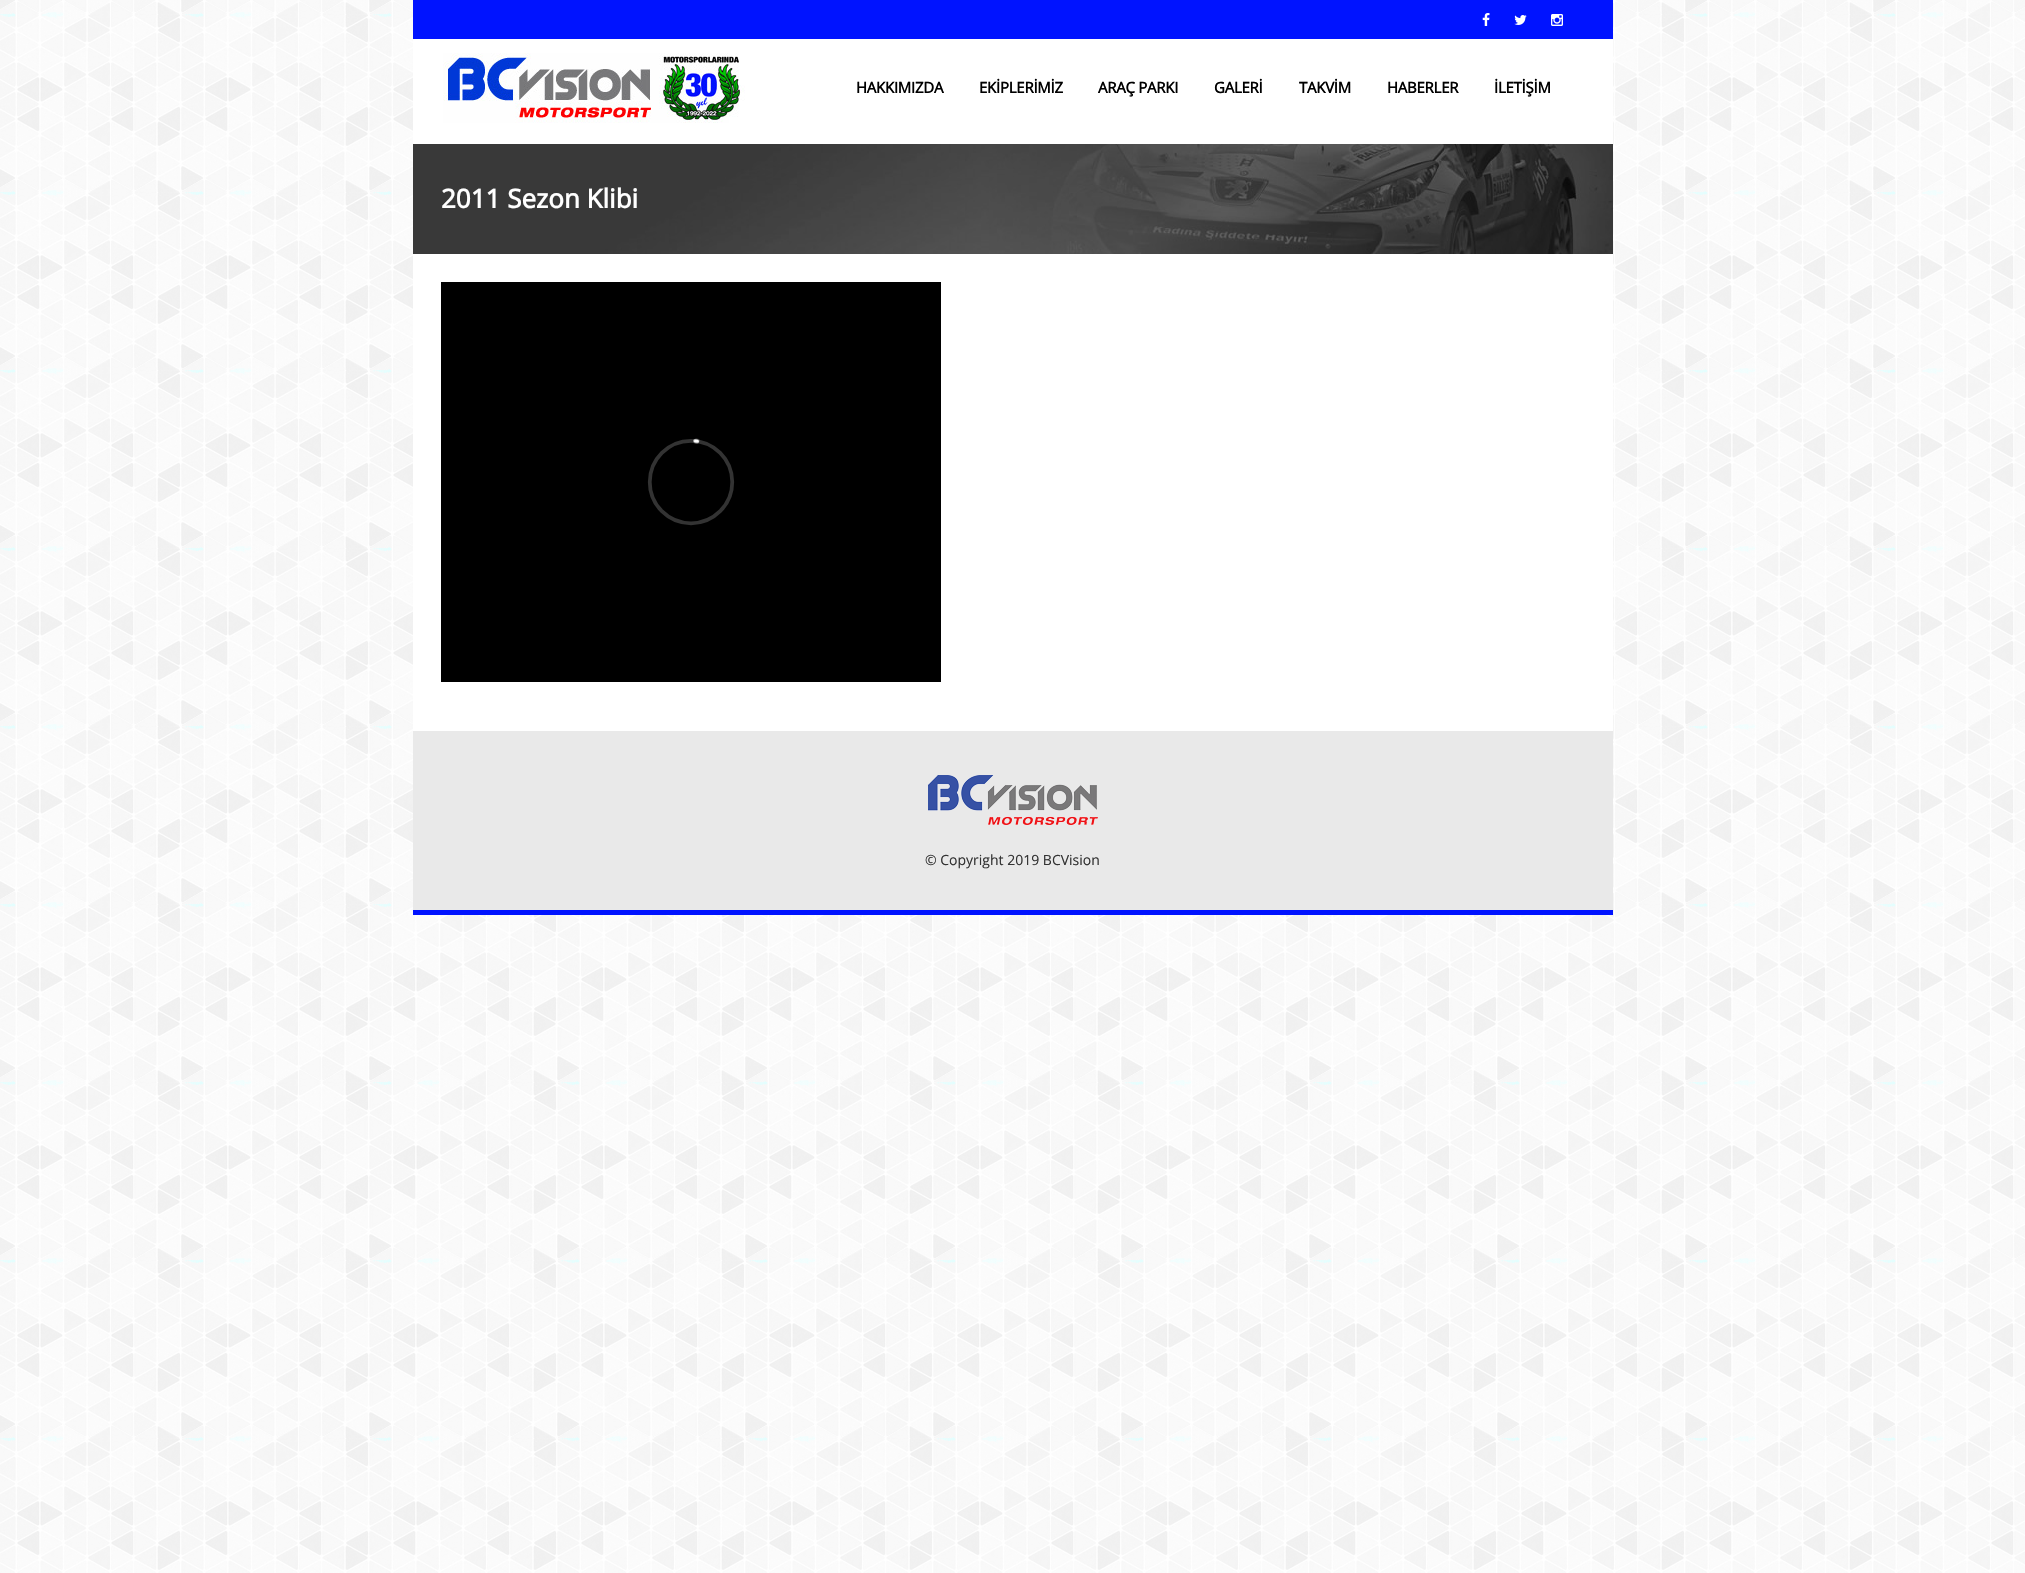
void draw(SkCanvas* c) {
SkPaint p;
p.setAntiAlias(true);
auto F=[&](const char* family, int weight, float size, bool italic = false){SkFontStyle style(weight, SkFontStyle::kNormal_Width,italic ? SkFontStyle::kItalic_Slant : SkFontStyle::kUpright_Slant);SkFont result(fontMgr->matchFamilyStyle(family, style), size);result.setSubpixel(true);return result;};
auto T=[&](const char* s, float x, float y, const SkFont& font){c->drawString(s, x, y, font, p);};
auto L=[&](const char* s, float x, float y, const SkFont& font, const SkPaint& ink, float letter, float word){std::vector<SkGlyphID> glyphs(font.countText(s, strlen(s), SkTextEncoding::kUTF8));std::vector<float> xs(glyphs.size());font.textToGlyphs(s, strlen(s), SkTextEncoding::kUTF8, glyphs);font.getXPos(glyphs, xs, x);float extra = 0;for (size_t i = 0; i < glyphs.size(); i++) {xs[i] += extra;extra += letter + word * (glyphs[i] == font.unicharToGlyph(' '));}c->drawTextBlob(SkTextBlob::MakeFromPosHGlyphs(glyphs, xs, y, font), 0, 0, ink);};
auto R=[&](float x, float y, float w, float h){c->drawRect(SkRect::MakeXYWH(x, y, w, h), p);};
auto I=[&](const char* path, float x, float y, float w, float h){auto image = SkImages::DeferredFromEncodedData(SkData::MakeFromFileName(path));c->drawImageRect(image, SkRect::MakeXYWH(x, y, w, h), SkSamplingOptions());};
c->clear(0xffffffff);
I("1.png",0,0,2025,1573);
p.setColor(0xff0013ff);
R(413,0,1200,39);
I("2.png",1482,13,8,13);
I("3.png",1514,15,13,10);
I("4.png",1551,14,12,12);
p.setColor(0xffffffff);
R(413,39,1200,105);
I("5.png",443,53,302,70);
auto f1 = F("Open Sans",700,15);
p.setColor(0xff000000);
L("HAKKIMIZDA",856,93,f1,p,-.25,0);
L("EKİPLERİMİZ",979,93,f1,p,-.25,0);
L("ARAÇ PARKI",1098,93,f1,p,-.25,0);
L("GALERİ",1214,93,f1,p,-.25,0);
L("TAKVİM",1299,93,f1,p,-.25,0);
L("HABERLER",1387,93,f1,p,-.25,0);
L("İLETİŞİM",1494,93,f1,p,-.25,0);
p.setColor(0xffffffff);
R(413,254,1200,477);
I("6.png",413,144,1200,110);
auto f2 = F("Open Sans",700,26);
T("2011 Sezon Klibi",441,208,f2);
I("7.png",441,282,500,400);
p.setColor(0xffe9e9e9);
R(413,731,1200,179);
p.setColor(0xff0013ff);
R(413,910,1200,5);
I("8.png",928,775,170,50);
auto f3 = F("Open Sans",400,14);
p.setColor(0xff333333);
T("© Copyright 2019 BCVision",925,865,f3);
}
